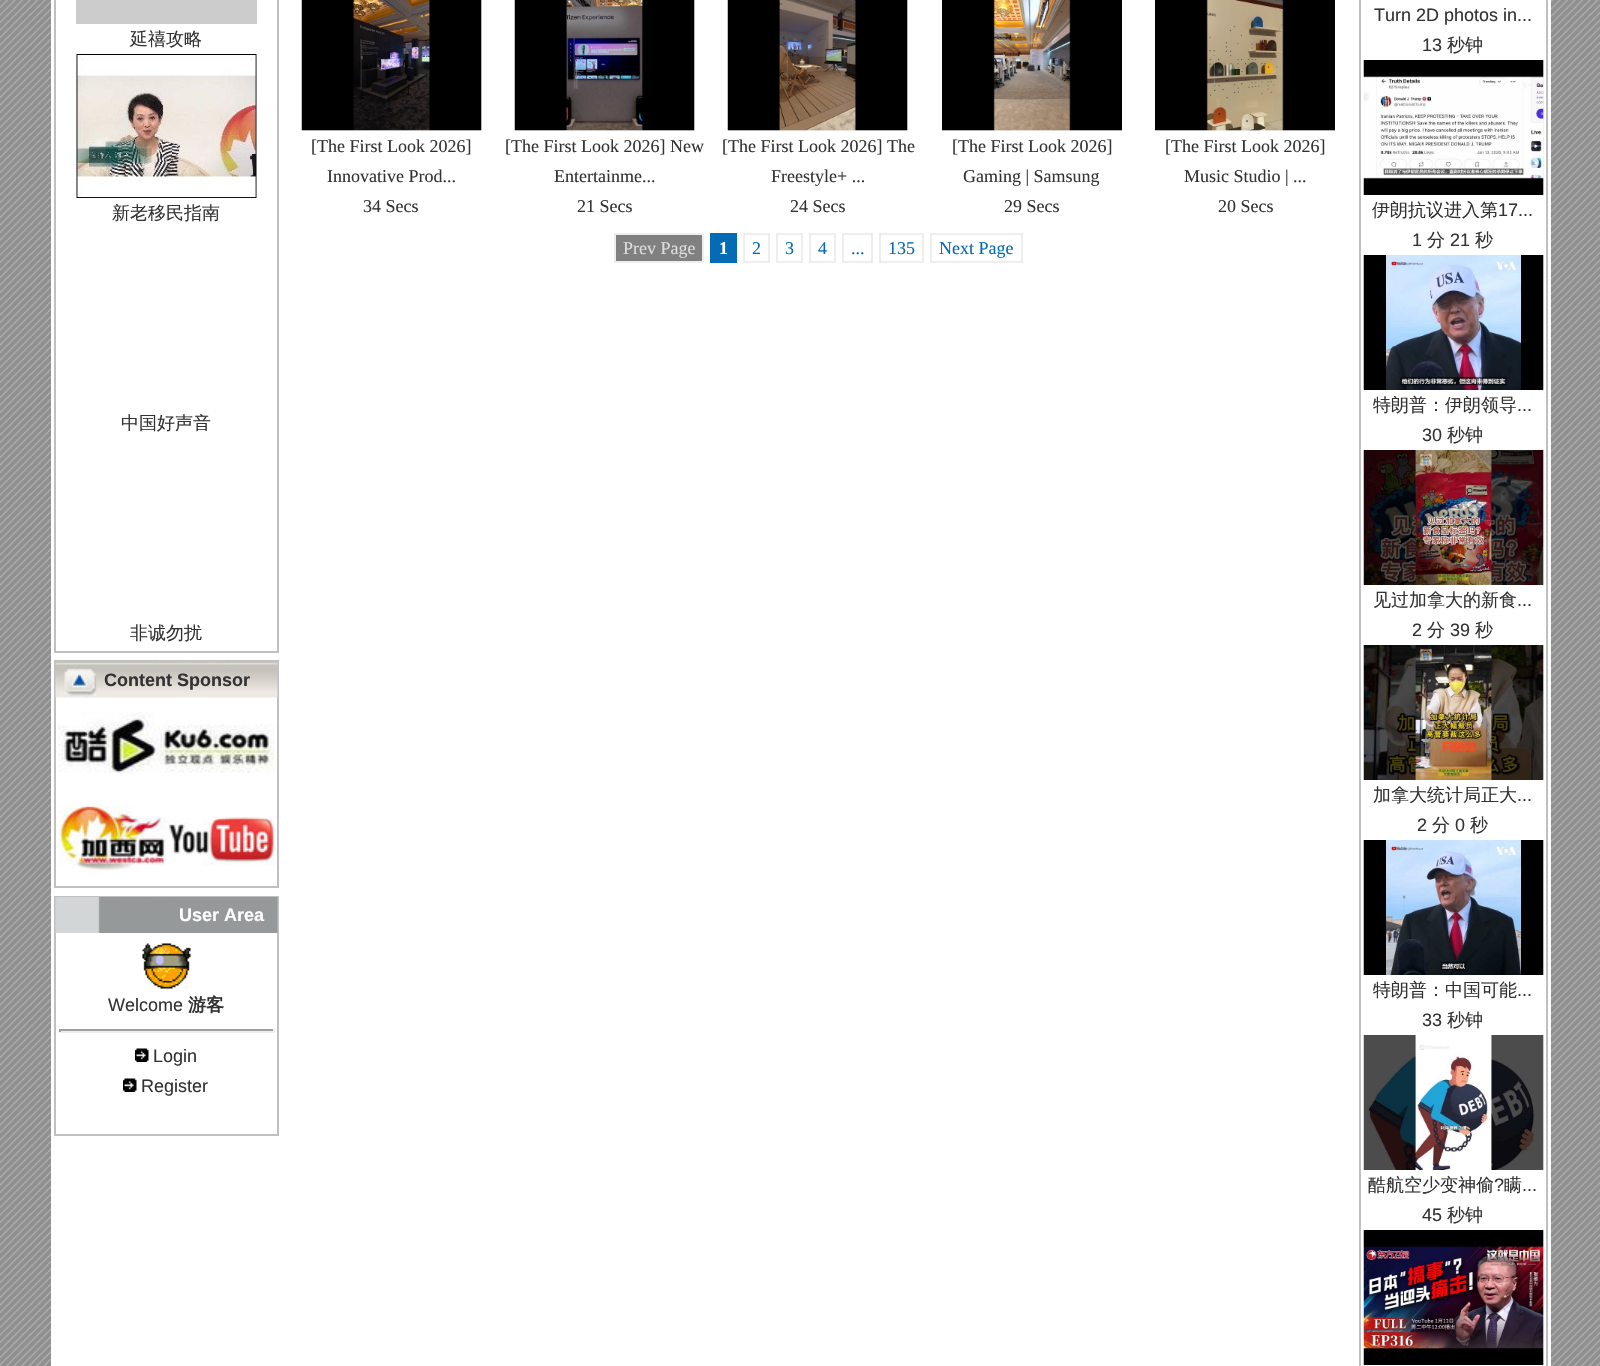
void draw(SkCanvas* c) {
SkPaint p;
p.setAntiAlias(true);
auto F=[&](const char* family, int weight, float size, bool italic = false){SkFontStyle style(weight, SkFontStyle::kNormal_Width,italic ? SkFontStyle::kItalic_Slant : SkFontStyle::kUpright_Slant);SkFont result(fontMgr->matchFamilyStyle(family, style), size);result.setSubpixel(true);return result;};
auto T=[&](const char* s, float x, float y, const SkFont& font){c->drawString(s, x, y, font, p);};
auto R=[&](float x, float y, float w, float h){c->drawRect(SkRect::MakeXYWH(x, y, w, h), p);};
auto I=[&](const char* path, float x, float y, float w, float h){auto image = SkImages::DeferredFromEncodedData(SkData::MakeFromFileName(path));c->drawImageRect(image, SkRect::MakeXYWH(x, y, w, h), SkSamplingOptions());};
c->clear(0xffffffff);
I("1.png",0,0,1600,1366);
p.setColor(0xffffffff);
R(51,0,1500,1366);
p.setStroke(true);
p.setStrokeWidth(2);
p.setColor(0xffc0c0c0);
c->drawRect(SkRect::MakeXYWH(55,-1,223,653),p);
auto f1 = F("WenQuanYi Zen Hei",500,18);
p.setStroke(false);
p.setColor(0xff333333);
T("延禧攻略",130,45,f1);
p.setColor(0xffcccccc);
R(76,0,181,24);
I("2.png",76,54,181,144);
p.setColor(0xff333333);
T("新老移民指南",112,219,f1);
T("中国好声音",121,429,f1);
T("非诚勿扰",130,639,f1);
p.setStroke(true);
p.setColor(0xffc0c0c0);
c->drawRect(SkRect::MakeXYWH(55,661,223,226),p);
I("3.png",55,661,223,37);
auto f2 = F("Liberation Sans",700,18);
p.setStroke(false);
p.setColor(0xff333333);
T("Content Sponsor",104,686,f2);
I("4.png",58,712,217,62);
I("5.png",58,805,217,68);
p.setStroke(true);
p.setColor(0xffc0c0c0);
c->drawRect(SkRect::MakeXYWH(55,897,223,238),p);
I("6.png",55,897,223,36);
p.setStroke(false);
p.setColor(0xffffffff);
T("User Area",179,921,f2);
I("7.png",142,943,49,46);
auto f3 = F("Liberation Sans",400,18);
p.setColor(0xff333333);
T("Welcome",108,1011,f3);
auto f4 = F("WenQuanYi Zen Hei",700,18);
T("游客",188,1011,f4);
p.setColor(0xff9f9f9f);
R(59,1029,216,2);
p.setColor(0xffeeeeee);
R(273,1029,2,3);
R(59,1031,216,2);
p.setColor(0xff9f9f9f);
R(59,1029,2,3);
I("8.png",135,1048,14,14);
p.setColor(0xff333333);
T("Login",153,1062,f3);
I("8.png",123,1078,14,14);
T("Register",141,1092,f3);
p.setColor(0xfff0f0f0);
R(302,0,180,131);
I("9.png",301,0,181,131);
auto f5 = F("Liberation Serif",400,18);
p.setColor(0xff333333);
T("[The First Look 2026]",311,152,f5);
T("Innovative Prod...",327,182,f5);
T("34 Secs",363,212,f5);
p.setColor(0xfff0f0f0);
R(515,0,180,131);
I("10.png",514,0,181,131);
p.setColor(0xff333333);
T("[The First Look 2026] New",505,152,f5);
T("Entertainme...",554,182,f5);
T("21 Secs",577,212,f5);
p.setColor(0xfff0f0f0);
R(728,0,180,131);
I("11.png",727,0,181,131);
p.setColor(0xff333333);
T("[The First Look 2026] The",722,152,f5);
T("Freestyle+ ...",771,182,f5);
T("24 Secs",790,212,f5);
p.setColor(0xfff0f0f0);
R(942,130,180,1);
I("12.png",942,0,180,131);
p.setColor(0xff333333);
T("[The First Look 2026]",952,152,f5);
T("Gaming | Samsung",963,182,f5);
T("29 Secs",1004,212,f5);
p.setColor(0xfff0f0f0);
R(1155,130,180,1);
I("13.png",1155,0,180,131);
p.setColor(0xff333333);
T("[The First Look 2026]",1165,152,f5);
T("Music Studio | ...",1184,182,f5);
T("20 Secs",1218,212,f5);
p.setColor(0xff808080);
c->drawRect(SkRect::MakeXYWH(615,234,88,28),p);
p.setStroke(true);
p.setColor(0xffeeeeee);
c->drawRect(SkRect::MakeXYWH(615,234,88,28),p);
p.setStroke(false);
p.setColor(0xffdddddd);
T("Prev Page",623,254,f5);
p.setColor(0xff036cb4);
R(710,233,27,30);
auto f6 = F("Liberation Serif",700,18);
p.setColor(0xffffffff);
T("1",719,254,f6);
p.setStroke(true);
p.setColor(0xffeeeeee);
c->drawRect(SkRect::MakeXYWH(744,234,25,28),p);
p.setStroke(false);
p.setColor(0xff036cb4);
T("2",752,254,f5);
p.setStroke(true);
p.setColor(0xffeeeeee);
c->drawRect(SkRect::MakeXYWH(777,234,25,28),p);
p.setStroke(false);
p.setColor(0xff036cb4);
T("3",785,254,f5);
p.setStroke(true);
p.setColor(0xffeeeeee);
c->drawRect(SkRect::MakeXYWH(810,234,25,28),p);
p.setStroke(false);
p.setColor(0xff036cb4);
T("4",818,254,f5);
p.setStroke(true);
p.setColor(0xffeeeeee);
c->drawRect(SkRect::MakeXYWH(843,234,29,28),p);
p.setStroke(false);
p.setColor(0xff036cb4);
T("...",851,254,f5);
p.setStroke(true);
p.setColor(0xffeeeeee);
c->drawRect(SkRect::MakeXYWH(880,234,43,28),p);
p.setStroke(false);
p.setColor(0xff036cb4);
T("135",888,254,f5);
p.setStroke(true);
p.setColor(0xffeeeeee);
c->drawRect(SkRect::MakeXYWH(931,234,91,28),p);
p.setStroke(false);
p.setColor(0xff036cb4);
T("Next Page",939,254,f5);
p.setStroke(true);
p.setColor(0xffc0c0c0);
c->drawRect(SkRect::MakeXYWH(1360,-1,187,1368),p);
p.setStroke(false);
p.setColor(0xff333333);
T("Turn 2D photos in...",1374,21,f3);
T("13",1422,51,f3);
T("秒钟",1447,51,f1);
p.setColor(0xfff0f0f0);
R(1543,60,1,135);
I("14.png",1363,60,181,135);
p.setColor(0xff333333);
T("伊朗抗议进入第",1372,216,f1);
T("17...",1498,216,f3);
T("1",1412,246,f3);
T("分",1427,246,f1);
T("21",1450,246,f3);
T("秒",1475,246,f1);
p.setColor(0xfff0f0f0);
R(1543,255,1,135);
I("15.png",1363,255,181,135);
p.setColor(0xff333333);
T("特朗普：伊朗领导",1373,411,f1);
T("...",1517,411,f3);
T("30",1422,441,f3);
T("秒钟",1447,441,f1);
p.setColor(0xfff0f0f0);
R(1543,450,1,135);
I("16.png",1363,450,181,135);
p.setColor(0xff333333);
T("见过加拿大的新食",1373,606,f1);
T("...",1517,606,f3);
T("2",1412,636,f3);
T("分",1427,636,f1);
T("39",1450,636,f3);
T("秒",1475,636,f1);
p.setColor(0xfff0f0f0);
R(1543,645,1,135);
I("17.png",1363,645,181,135);
p.setColor(0xff333333);
T("加拿大统计局正大",1373,801,f1);
T("...",1517,801,f3);
T("2",1417,831,f3);
T("分",1432,831,f1);
T("0",1455,831,f3);
T("秒",1470,831,f1);
p.setColor(0xfff0f0f0);
R(1543,840,1,135);
I("18.png",1363,840,181,135);
p.setColor(0xff333333);
T("特朗普：中国可能",1373,996,f1);
T("...",1517,996,f3);
T("33",1422,1026,f3);
T("秒钟",1447,1026,f1);
p.setColor(0xfff0f0f0);
R(1543,1035,1,135);
I("19.png",1363,1035,181,135);
p.setColor(0xff333333);
T("酷航空少变神偷",1368,1191,f1);
T("?",1494,1191,f3);
T("瞒",1504,1191,f1);
T("...",1522,1191,f3);
T("45",1422,1221,f3);
T("秒钟",1447,1221,f1);
p.setColor(0xfff0f0f0);
R(1543,1230,1,135);
I("20.png",1363,1230,181,135);
}
